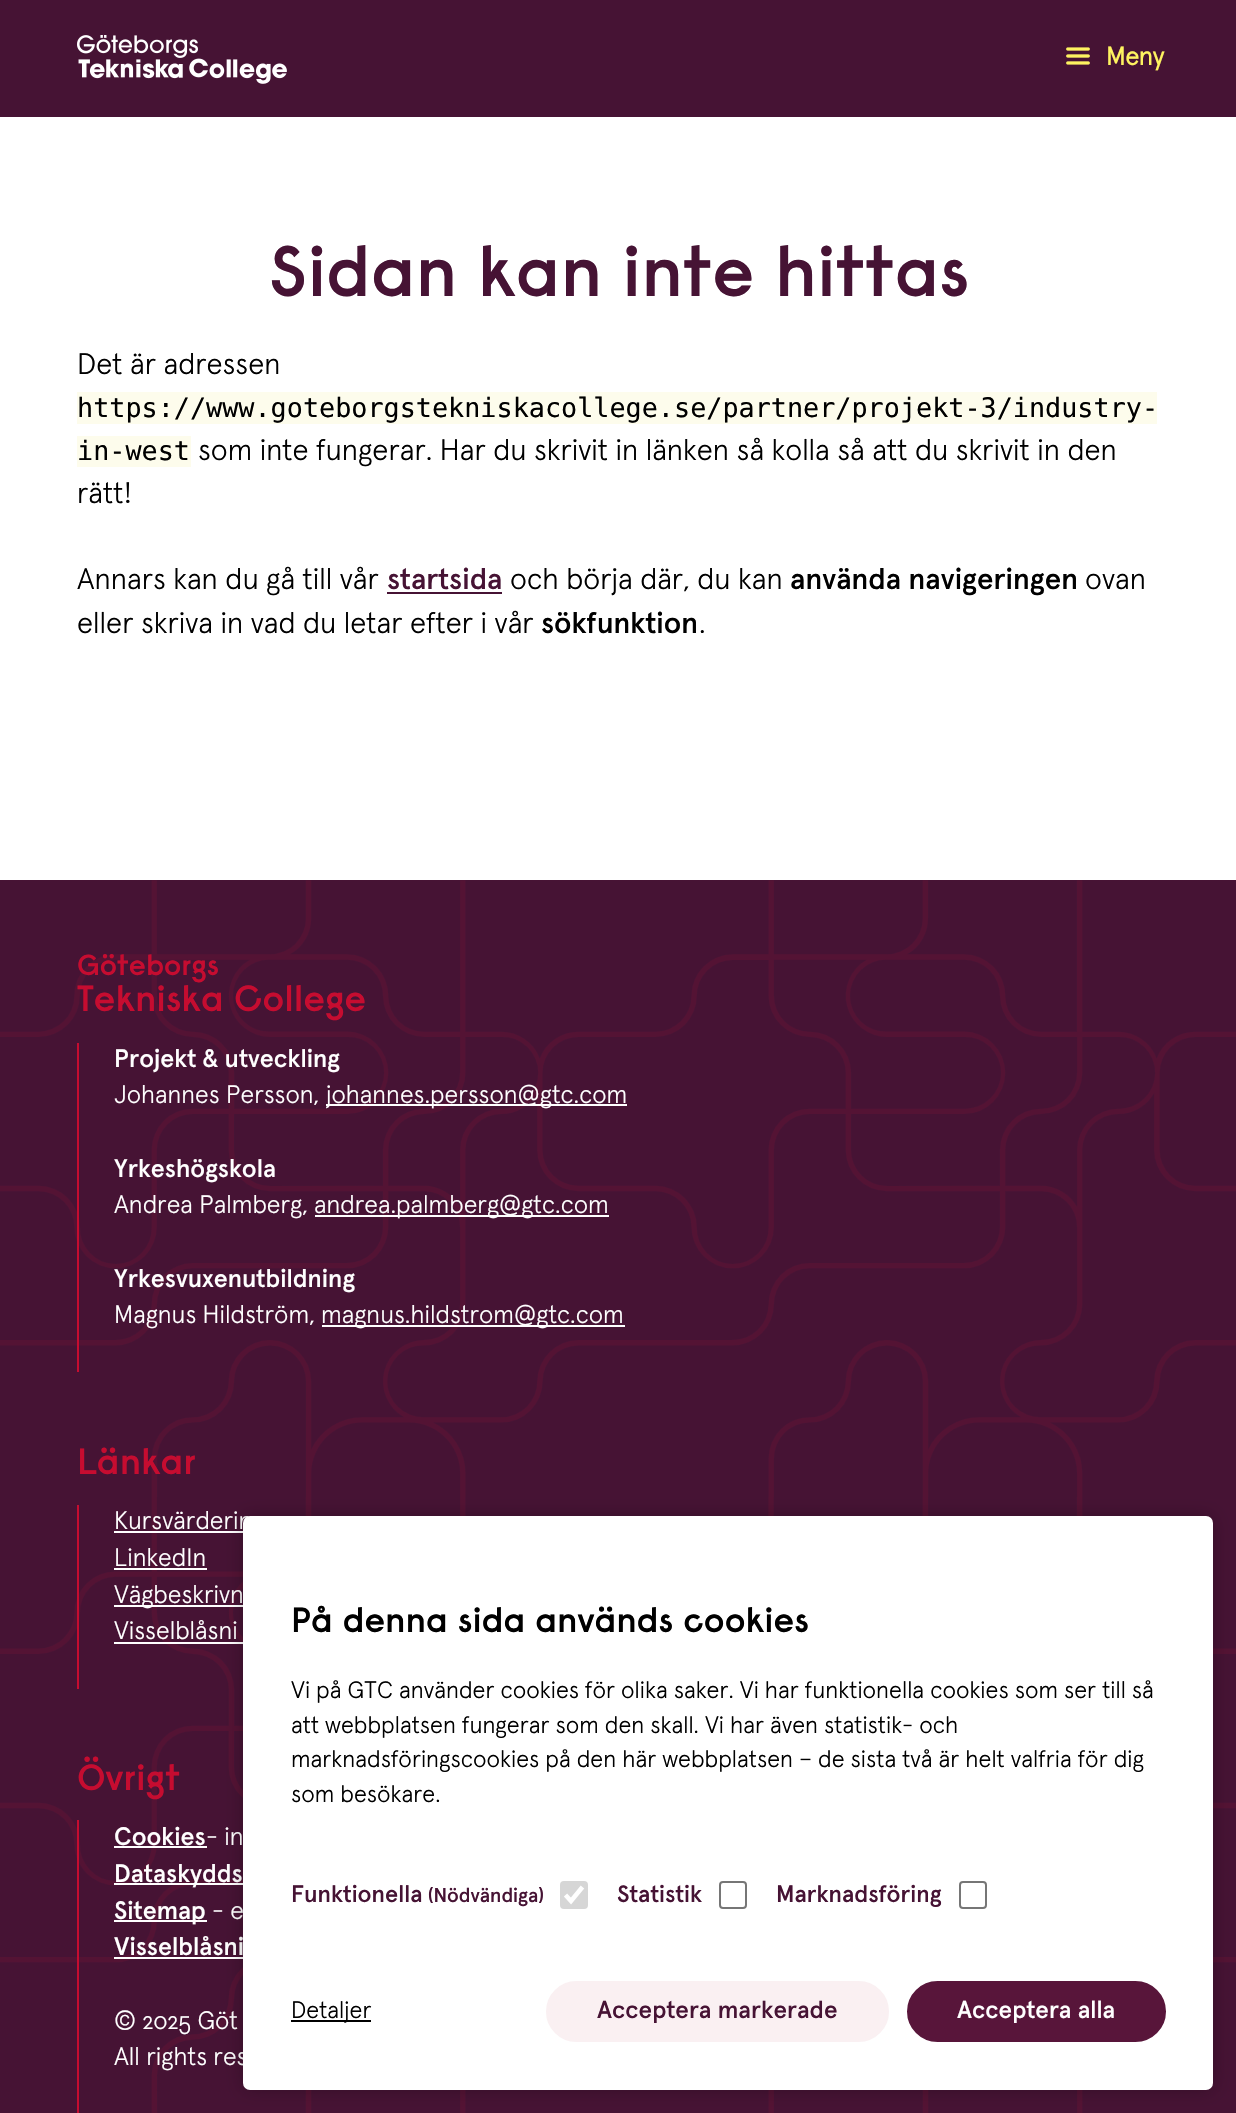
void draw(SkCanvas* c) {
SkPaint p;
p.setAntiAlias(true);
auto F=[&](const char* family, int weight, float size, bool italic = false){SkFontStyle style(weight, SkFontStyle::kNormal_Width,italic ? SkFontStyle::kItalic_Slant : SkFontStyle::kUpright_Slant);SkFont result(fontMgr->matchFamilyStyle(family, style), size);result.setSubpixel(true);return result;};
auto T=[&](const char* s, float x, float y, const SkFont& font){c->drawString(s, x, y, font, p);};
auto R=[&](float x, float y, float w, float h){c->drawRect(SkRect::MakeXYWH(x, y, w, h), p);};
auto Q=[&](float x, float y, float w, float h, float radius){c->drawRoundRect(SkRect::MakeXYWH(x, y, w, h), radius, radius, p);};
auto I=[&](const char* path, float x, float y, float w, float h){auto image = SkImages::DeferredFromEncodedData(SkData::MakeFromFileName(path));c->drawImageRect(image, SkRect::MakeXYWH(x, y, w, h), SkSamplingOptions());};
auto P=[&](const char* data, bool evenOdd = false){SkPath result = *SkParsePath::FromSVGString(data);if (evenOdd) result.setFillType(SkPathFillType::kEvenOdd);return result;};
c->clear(0xff461334);
I("1.png",77,35,210,49);
I("2.png",1066,47,24,18);
auto f1 = F("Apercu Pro",700,25.25);
p.setColor(0xfffef360);
T("Meny",1106,65,f1);
p.setColor(0xffffffff);
R(0,117,1236,763);
auto f2 = F("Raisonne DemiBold",600,71.5);
p.setColor(0xff461334);
T("Sidan kan inte hittas",269,296,f2);
auto f3 = F("Apercu Pro",300,29.75);
p.setColor(0xff000000);
T("Det är adressen",77,374,f3);
p.setColor(0xfffdfcec);
R(77,392,1080,32);
auto f4 = F("DejaVu Sans Mono",400,26.8);
p.setColor(0xff000000);
T("https://www.goteborgstekniskacollege.se/partner/projekt-3/industry-",77,417,f4);
p.setColor(0xfffdfcec);
R(77,436,114,31);
p.setColor(0xff000000);
T("in-west",77,460,f4);
T("som inte fungerar. Har du skrivit in länken så kolla så att du skrivit in den",198,460,f3);
T("rätt!",77,503,f3);
T("Annars kan du gå till vår",77,589,f3);
auto f5 = F("Apercu Pro",500,29.75);
p.setColor(0xff461334);
T("startsida",387,589,f5);
R(387,592,115,2);
p.setColor(0xff000000);
T("och börja där, du kan",510,589,f3);
T("använda navigeringen",790,589,f5);
T("ovan",1085,589,f3);
T("eller skriva in vad du letar efter i vår",77,633,f3);
T("sökfunktion",541,633,f5);
T(".",699,633,f3);
I("3.png",0,880,1236,1233);
auto f6 = F("Raisonne DemiBold",600,29);
p.setColor(0xffc60c30);
T("Göteborgs",77,975,f6);
auto f7 = F("Raisonne DemiBold",600,36.5);
T("Tekniska College",77,1011,f7);
R(77,1043,2,329);
auto f8 = F("Apercu Pro",500,25.25);
p.setColor(0xffffffff);
T("Projekt & utveckling",114,1067,f8);
auto f9 = F("Apercu Pro",300,25.25);
T("Johannes Persson,",114,1103,f9);
R(326,1104,301,2);
T("johannes.persson@gtc.com",326,1103,f9);
T("Yrkeshögskola",114,1177,f8);
T("Andrea Palmberg,",114,1213,f9);
R(315,1215,294,2);
T("andrea.palmberg@gtc.com",314,1213,f9);
T("Yrkesvuxenutbildning",114,1287,f8);
T("Magnus Hildström,",114,1323,f9);
R(322,1325,303,2);
T("magnus.hildstrom@gtc.com",321,1323,f9);
p.setColor(0xffc60c30);
T("Länkar",77,1474,f7);
R(77,1505,2,184);
p.setColor(0xffffffff);
T("Kursvärderin",114,1529,f9);
R(114,1531,129,2);
T("LinkedIn",114,1566,f9);
R(114,1568,93,2);
R(114,1605,129,2);
T("Vägbeskrivn",114,1603,f9);
T("Visselblåsni",114,1639,f9);
R(114,1642,129,2);
p.setColor(0xffc60c30);
T("Övrigt",77,1790,f7);
R(77,1820,2,293);
p.setColor(0xffffffff);
T("Cookies",114,1845,f8);
R(114,1846,93,2);
T("- in",206,1845,f9);
R(114,1883,129,2);
T("Dataskydds",114,1882,f8);
R(114,1920,93,2);
T("Sitemap",114,1919,f8);
T("- e",212,1919,f9);
T("Visselblåsni",114,1955,f8);
R(114,1957,129,2);
auto f10 = F("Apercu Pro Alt",300,25.25);
T("© 2025 Göt",114,2029,f10);
T("All rights res",114,2065,f9);
p.setColor(0x40000000);
p.setMaskFilter(SkMaskFilter::MakeBlur(kNormal_SkBlurStyle, 9));
c->drawRoundRect(SkRect::MakeXYWH(243,1516,970,574),7,7,p);
p.setMaskFilter(nullptr);
p.setColor(0xffffffff);
Q(243,1516,970,574,7);
auto f11 = F("Raisonne DemiBold",600,35);
p.setColor(0xff000000);
T("På denna sida används cookies",291,1632,f11);
auto f12 = F("Apercu Pro",300,23.8);
T("Vi på GTC använder cookies för olika saker. Vi har funktionella cookies som ser till så",291,1698,f12);
T("att webbplatsen fungerar som den skall. Vi har även statistik- och",291,1733,f12);
T("marknadsföringscookies på den här webbplatsen – de sista två är helt valfria för dig",291,1767,f12);
T("som besökare.",291,1802,f12);
auto f13 = F("Apercu Pro",500,23.8);
p.setColor(0xff461334);
T("Funktionella",291,1902,f13);
auto f14 = F("Apercu Pro",500,20);
T("(Nödvändiga)",428,1902,f14);
p.setColor(0xffd6d6d6);
Q(560,1881,28,28,4);
p.setStroke(true);
p.setStrokeWidth(4.5);
p.setColor(0xffffffff);
c->drawPath(P("M565.5 1895l5.5 6l11.5-14"),p);
p.setStroke(false);
p.setColor(0xff461334);
T("Statistik",617,1902,f13);
p.setStroke(true);
p.setStrokeWidth(2);
p.setColor(0xff767676);
c->drawRoundRect(SkRect::MakeXYWH(720,1882,26,26),3,3,p);
p.setStroke(false);
p.setColor(0xff461334);
T("Marknadsföring",776,1902,f13);
p.setStroke(true);
p.setColor(0xff767676);
c->drawRoundRect(SkRect::MakeXYWH(960,1882,26,26),3,3,p);
p.setStroke(false);
p.setColor(0xff000000);
R(291,2020,80,2);
T("Detaljer",291,2018,f12);
p.setColor(0xfffaf0f2);
c->drawRoundRect(SkRect::MakeXYWH(547,1982,341,59),29.5,29.5,p);
p.setStroke(true);
c->drawRoundRect(SkRect::MakeXYWH(547,1982,341,59),29.5,29.5,p);
auto f15 = F("Apercu Pro",500,24.5);
p.setStroke(false);
p.setColor(0xff461334);
T("Acceptera markerade",597,2018,f15);
p.setColor(0xff58153a);
c->drawRoundRect(SkRect::MakeXYWH(908,1982,257,59),29.5,29.5,p);
p.setStroke(true);
c->drawRoundRect(SkRect::MakeXYWH(908,1982,257,59),29.5,29.5,p);
p.setStroke(false);
p.setColor(0xffffffff);
T("Acceptera alla",957,2018,f15);
}
